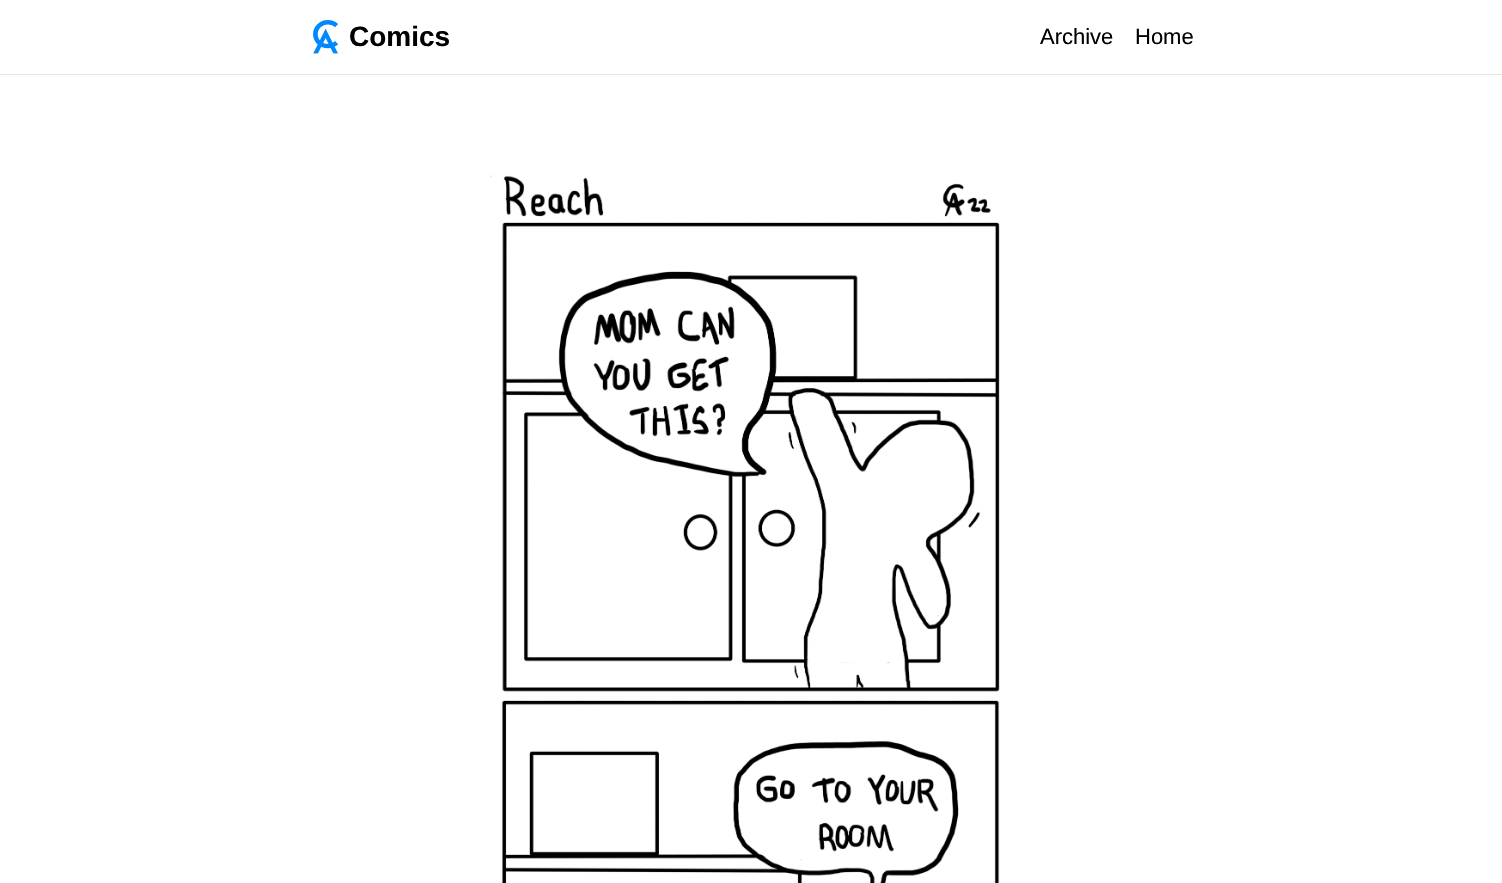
void draw(SkCanvas* c) {
SkPaint p;
p.setAntiAlias(true);
auto F=[&](const char* family, int weight, float size, bool italic = false){SkFontStyle style(weight, SkFontStyle::kNormal_Width,italic ? SkFontStyle::kItalic_Slant : SkFontStyle::kUpright_Slant);SkFont result(fontMgr->matchFamilyStyle(family, style), size);result.setSubpixel(true);return result;};
auto T=[&](const char* s, float x, float y, const SkFont& font){c->drawString(s, x, y, font, p);};
auto R=[&](float x, float y, float w, float h){c->drawRect(SkRect::MakeXYWH(x, y, w, h), p);};
auto I=[&](const char* path, float x, float y, float w, float h){auto image = SkImages::DeferredFromEncodedData(SkData::MakeFromFileName(path));c->drawImageRect(image, SkRect::MakeXYWH(x, y, w, h), SkSamplingOptions());};
c->clear(0xffffffff);
p.setColor(0xffe8e4e4);
R(0,74,1502,1);
I("1.png",313,20,25,34);
auto f1 = F("Liberation Sans",700,28);
p.setColor(0xff000000);
T("Comics",349,46,f1);
auto f2 = F("Liberation Sans",400,22);
T("Archive",1040,44,f2);
T("Home",1135,44,f2);
I("2.png",490,175,510,708);
}
